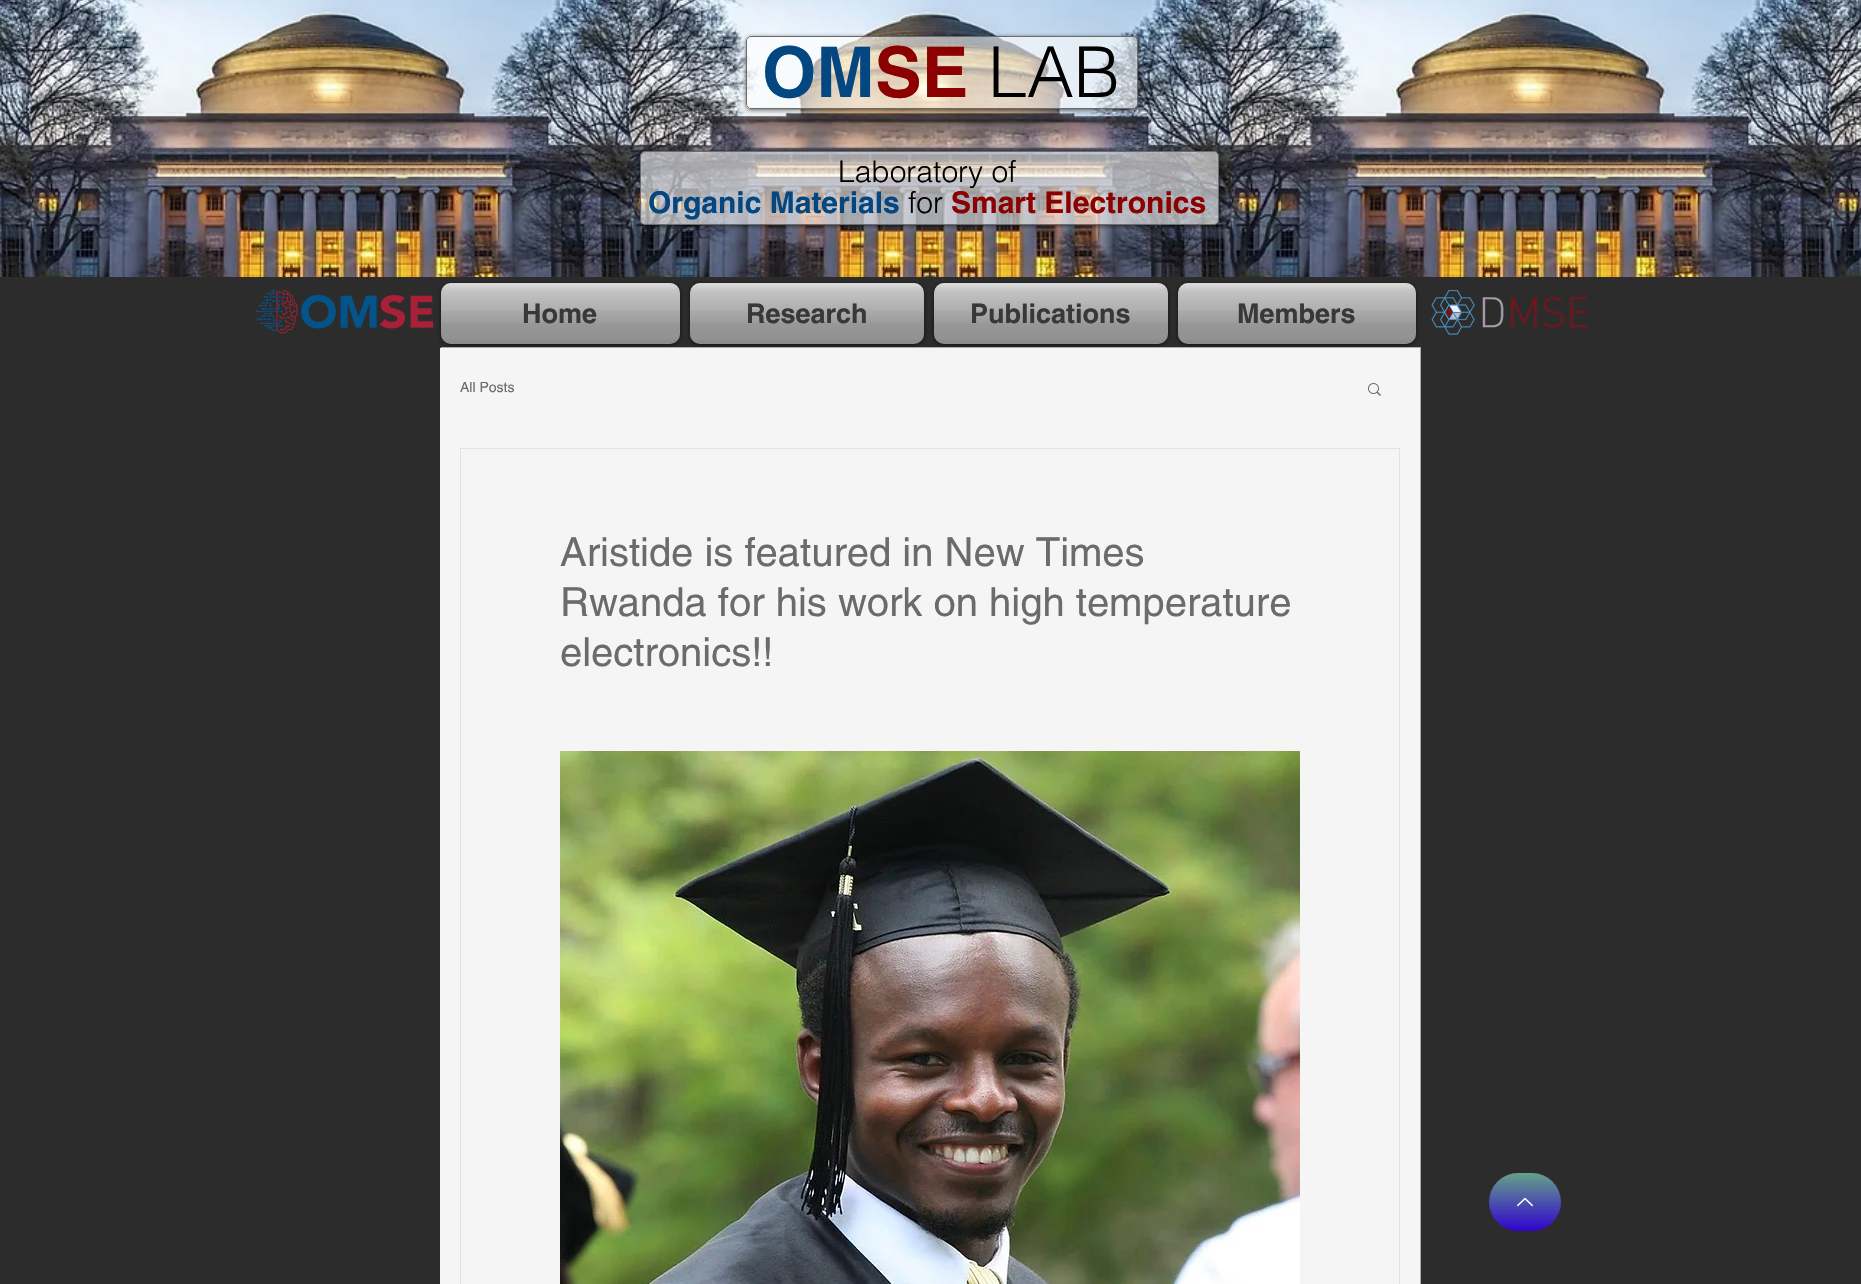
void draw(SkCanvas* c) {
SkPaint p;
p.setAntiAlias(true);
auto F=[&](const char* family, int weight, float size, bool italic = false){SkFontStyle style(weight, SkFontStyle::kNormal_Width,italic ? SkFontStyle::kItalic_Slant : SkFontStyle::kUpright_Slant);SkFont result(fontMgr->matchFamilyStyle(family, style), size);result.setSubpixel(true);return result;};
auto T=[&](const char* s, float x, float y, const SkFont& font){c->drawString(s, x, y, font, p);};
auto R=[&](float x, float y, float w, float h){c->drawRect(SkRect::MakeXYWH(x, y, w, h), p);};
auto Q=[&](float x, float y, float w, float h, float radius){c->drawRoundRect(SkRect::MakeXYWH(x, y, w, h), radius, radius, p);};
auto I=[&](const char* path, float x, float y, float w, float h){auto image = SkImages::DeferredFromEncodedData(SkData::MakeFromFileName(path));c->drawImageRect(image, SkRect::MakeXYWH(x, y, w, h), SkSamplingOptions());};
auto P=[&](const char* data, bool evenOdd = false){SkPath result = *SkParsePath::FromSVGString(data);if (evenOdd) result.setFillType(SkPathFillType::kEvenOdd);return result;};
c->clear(0xff2c2c2c);
I("1.png",0,0,1861,277);
c->save();
c->clipPath(P("M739 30h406v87h-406zm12 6h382c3 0 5 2 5 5v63c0 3-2 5-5 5h-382c-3 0-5-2-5-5v-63c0-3 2-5 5-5z",true),true);
p.setColor(0x99000000);
p.setMaskFilter(SkMaskFilter::MakeBlur(kNormal_SkBlurStyle, 2));
c->drawRoundRect(SkRect::MakeXYWH(746,37,392,73),5,5,p);
p.setMaskFilter(nullptr);
c->restore();
p.setColor(0x96ffffff);
c->drawRoundRect(SkRect::MakeXYWH(746.5,36.5,391,72),4.5,4.5,p);
p.setStroke(true);
p.setStrokeWidth(1);
p.setColor(0xff6b6b6b);
c->drawRoundRect(SkRect::MakeXYWH(746.5,36.5,391,72),4.5,4.5,p);
auto f1 = F("helvetica",700,70);
p.setStroke(false);
p.setColor(0xff034680);
T("OM",762,97,f1);
p.setColor(0xff8b0000);
T("SE",875,97,f1);
auto f2 = F("helvetica",300,70);
p.setColor(0xff000000);
T("LAB",988,97,f2);
c->save();
c->clipPath(P("M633 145h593v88h-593zm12 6h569c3 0 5 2 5 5v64c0 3-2 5-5 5h-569c-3 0-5-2-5-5v-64c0-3 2-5 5-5z",true),true);
p.setColor(0x99000000);
p.setMaskFilter(SkMaskFilter::MakeBlur(kNormal_SkBlurStyle, 2));
c->drawRoundRect(SkRect::MakeXYWH(640,152,579,74),5,5,p);
p.setMaskFilter(nullptr);
c->restore();
p.setColor(0x96ffffff);
c->drawRoundRect(SkRect::MakeXYWH(640.5,151.5,578,73),4.5,4.5,p);
p.setStroke(true);
p.setColor(0xff6b6b6b);
c->drawRoundRect(SkRect::MakeXYWH(640.5,151.5,578,73),4.5,4.5,p);
auto f3 = F("helvetica",300,30);
p.setStroke(false);
p.setColor(0xff000000);
T("Laboratory of",838,182,f3);
auto f4 = F("helvetica",700,30);
p.setColor(0xff034680);
T("Organic Materials",648,213,f4);
p.setColor(0xff000000);
T("for",908,213,f3);
p.setColor(0xff8b0000);
T("Smart Electronics",951,213,f4);
c->save();
c->clipPath(P("M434 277h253v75h-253zm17 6h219c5.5 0 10 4.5 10 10v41c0 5.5-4.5 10-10 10h-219c-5.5 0-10-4.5-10-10v-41c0-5.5 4.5-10 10-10z",true),true);
p.setColor(0x99000000);
p.setMaskFilter(SkMaskFilter::MakeBlur(kNormal_SkBlurStyle, 2));
c->drawRoundRect(SkRect::MakeXYWH(441,284,239,61),10,10,p);
p.setMaskFilter(nullptr);
c->restore();
c->save();
c->clipPath(P("M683 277h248v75h-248zm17 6h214c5.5 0 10 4.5 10 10v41c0 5.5-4.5 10-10 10h-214c-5.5 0-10-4.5-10-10v-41c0-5.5 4.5-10 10-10z",true),true);
p.setMaskFilter(SkMaskFilter::MakeBlur(kNormal_SkBlurStyle, 2));
c->drawRoundRect(SkRect::MakeXYWH(690,284,234,61),10,10,p);
p.setMaskFilter(nullptr);
c->restore();
c->save();
c->clipPath(P("M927 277h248v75h-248zm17 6h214c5.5 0 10 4.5 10 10v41c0 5.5-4.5 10-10 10h-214c-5.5 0-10-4.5-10-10v-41c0-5.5 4.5-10 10-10z",true),true);
p.setMaskFilter(SkMaskFilter::MakeBlur(kNormal_SkBlurStyle, 2));
c->drawRoundRect(SkRect::MakeXYWH(934,284,234,61),10,10,p);
p.setMaskFilter(nullptr);
c->restore();
c->save();
c->clipPath(P("M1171 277h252v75h-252zm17 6h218c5.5 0 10 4.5 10 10v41c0 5.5-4.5 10-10 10h-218c-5.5 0-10-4.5-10-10v-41c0-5.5 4.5-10 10-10z",true),true);
p.setMaskFilter(SkMaskFilter::MakeBlur(kNormal_SkBlurStyle, 2));
c->drawRoundRect(SkRect::MakeXYWH(1178,284,238,61),10,10,p);
p.setMaskFilter(nullptr);
c->restore();
p.setColor(0x99ffffff);
R(441,347,980,937);
p.setColor(0xfff5f5f5);
R(440,348,980,936);
auto f5 = F("helvetica",400,14);
p.setColor(0xff6b6b6b);
T("All Posts",460,392,f5);
I("2.png",1368,383,13,13);
p.setStroke(true);
p.setColor(0xffe2e2e2);
c->drawRect(SkRect::MakeXYWH(460.5,448.5,939,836),p);
auto f6 = F("helvetica",400,40);
p.setStroke(false);
p.setColor(0xff6b6b6b);
T("Aristide is featured in New Times",560,566,f6);
T("Rwanda for his work on high temperature",560,616,f6);
T("electronics!!",560,666,f6);
I("3.png",560,751,740,533);
I("4.png",256,290,42,44);
I("5.png",301,294,133,35);
p.setColor(0x96f5f5f5);
Q(441,283,239,61,10);
I("6.png",441,283,239,40);
I("7.png",441,310,239,34);
auto f7 = F("helvetica",700,27);
p.setColor(0xff383838);
T("Home",522,323,f7);
p.setColor(0x96f5f5f5);
Q(690,283,234,61,10);
I("8.png",690,283,234,40);
I("9.png",690,310,234,34);
p.setColor(0xff383838);
T("Research",746,323,f7);
p.setColor(0x96f5f5f5);
Q(934,283,234,61,10);
I("10.png",934,283,234,40);
I("9.png",934,310,234,34);
p.setColor(0xff383838);
T("Publications",970,323,f7);
p.setColor(0x96f5f5f5);
Q(1178,283,238,61,10);
I("11.png",1178,283,238,40);
I("12.png",1178,310,238,34);
p.setColor(0xff383838);
T("Members",1237,323,f7);
I("13.png",1431,290,156,45);
{
const SkColor colors[] = {0xff65a288,0xff3002cf};
const float stops[] = {0,1};
const SkPoint ends[] = {{1525,1173}, {1525,1231}};
p.setShader(SkGradientShader::MakeLinear(ends, colors, stops, 2, SkTileMode::kClamp));
p.setAlpha(255);
}
Q(1489,1173,72,58,29);
I("14.png",1517,1197,16,10);
}
